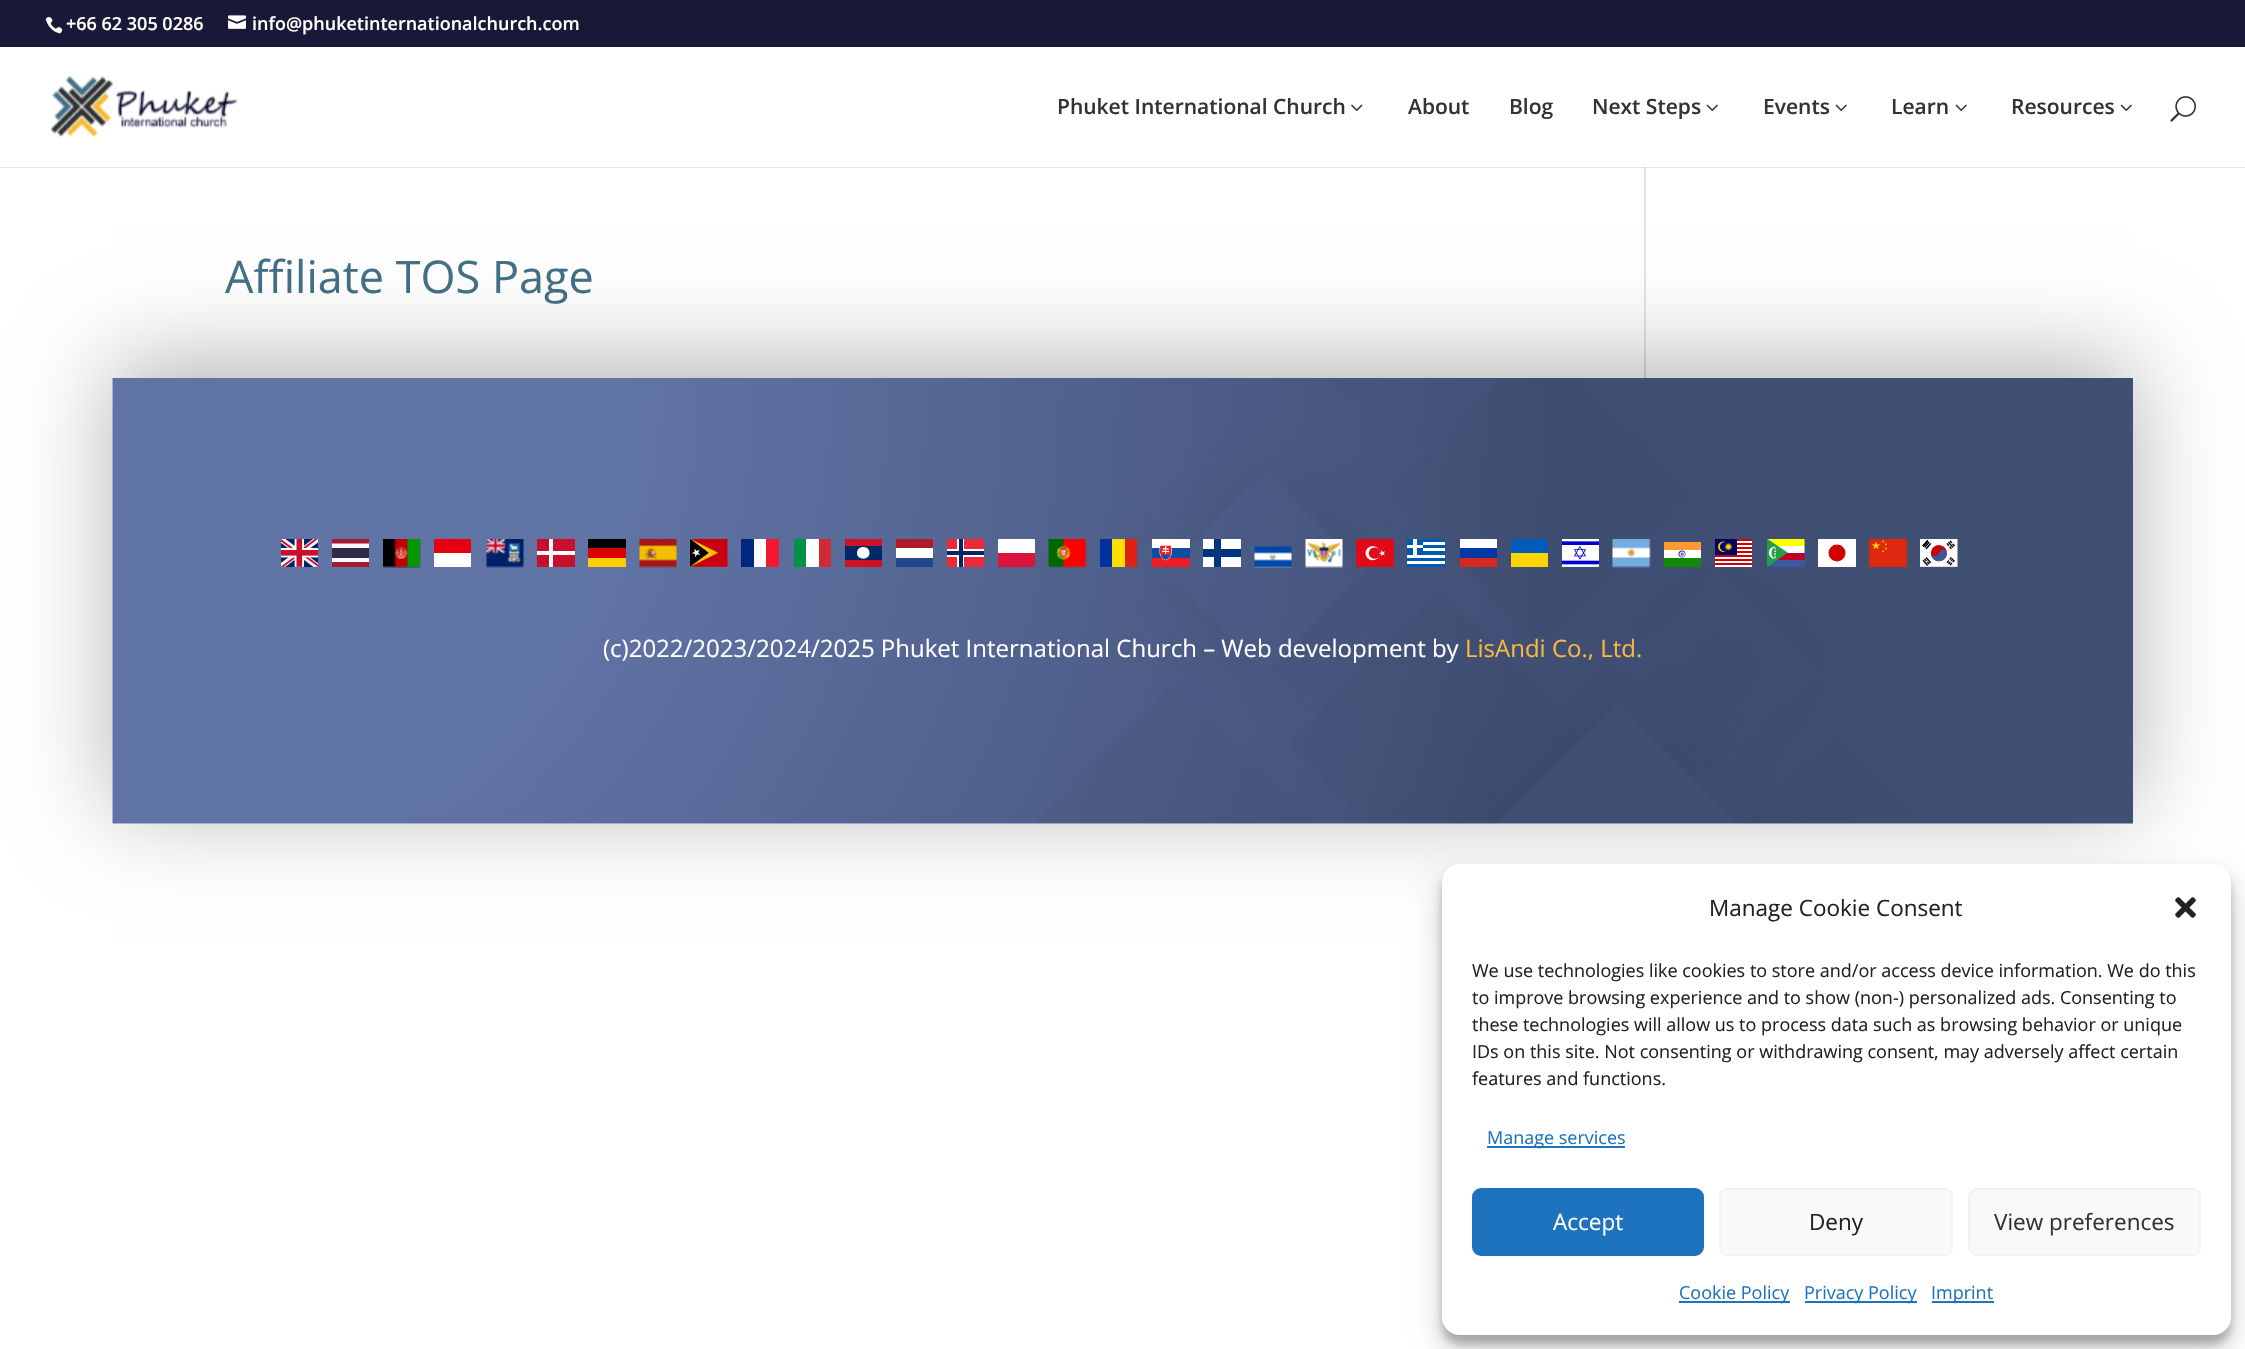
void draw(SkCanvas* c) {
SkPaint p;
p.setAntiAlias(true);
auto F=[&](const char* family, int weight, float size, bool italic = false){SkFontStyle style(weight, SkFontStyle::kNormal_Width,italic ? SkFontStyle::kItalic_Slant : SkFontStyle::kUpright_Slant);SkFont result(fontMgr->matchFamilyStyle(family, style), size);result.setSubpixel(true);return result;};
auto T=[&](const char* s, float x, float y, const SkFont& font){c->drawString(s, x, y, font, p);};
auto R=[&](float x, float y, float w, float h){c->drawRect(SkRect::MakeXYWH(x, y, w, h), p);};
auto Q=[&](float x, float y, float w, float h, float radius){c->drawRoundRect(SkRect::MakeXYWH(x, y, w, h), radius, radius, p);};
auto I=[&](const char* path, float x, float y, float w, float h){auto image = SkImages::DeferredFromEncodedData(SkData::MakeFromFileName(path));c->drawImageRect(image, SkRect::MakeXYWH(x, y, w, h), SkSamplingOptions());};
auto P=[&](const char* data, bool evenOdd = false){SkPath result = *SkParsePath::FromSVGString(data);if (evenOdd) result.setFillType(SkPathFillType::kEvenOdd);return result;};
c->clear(0xffffffff);
p.setColor(0xff191937);
R(0,0,2245,47);
I("1.png",45,16,18,18);
auto f1 = F("Open Sans",600,18);
p.setColor(0xffffffff);
T("+66 62 305 0286",66,30,f1);
I("2.png",228,15,18,14);
T("info@phuketinternationalchurch.com",252,30,f1);
p.setColor(0xffe2e2e2);
R(1644,167,2,211);
p.setColor(0x1a000000);
c->drawPath(P("M0 166v2h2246v-120v118z"),p);
p.setColor(0xffffffff);
R(0,166,2245,1);
I("3.png",51,76,186,61);
auto f2 = F("Open Sans",600,21);
p.setColor(0xff333333);
T("Phuket International Church",1057,114,f2);
I("4.png",1351,104,12,7);
T("About",1408,114,f2);
T("Blog",1509,114,f2);
T("Next Steps",1592,114,f2);
I("5.png",1706,104,12,7);
T("Events",1763,114,f2);
I("5.png",1835,104,12,7);
T("Learn",1891,114,f2);
I("5.png",1955,104,12,7);
T("Resources",2011,114,f2);
I("5.png",2120,104,12,7);
I("6.png",2170,96,26,26);
auto f3 = F("Open Sans",400,45);
p.setColor(0xff437086);
T("Affiliate TOS Page",225,293,f3);
p.setColor(0x4d000000);
p.setMaskFilter(SkMaskFilter::MakeBlur(kNormal_SkBlurStyle, 45));
c->drawRect(SkRect::MakeXYWH(113,363,2020,446),p);
p.setMaskFilter(nullptr);
I("7.png",112,378,2021,446);
I("8.png",281,539,37,28);
p.setColor(0xfff4f5f8);
R(332,543,37,19);
p.setColor(0xff2d2a4a);
R(332,548,37,10);
c->save();
c->clipRect(SkRect::MakeXYWH(332,539,37,28));
p.setColor(0xffa51931);
c->drawPath(P("M331.5 538.5h37.5v5h-37.5zm0 23.5h37.5v5h-37.5z",true),p);
c->restore();
I("9.png",383,539,38,29);
p.setColor(0xffe70011);
R(434,539,37,14);
I("10.png",486,539,38,29);
p.setColor(0xffc8102e);
R(537,539,38,28);
p.setColor(0xffffffff);
R(549,539,4,28);
p.setColor(0xff000000);
R(588,539,38,9);
I("11.png",639,539,38,29);
I("12.png",690,539,38,28);
p.setColor(0xff00267f);
R(741,539,13,28);
p.setColor(0xffffffff);
R(754,539,12,28);
p.setColor(0xfff31830);
R(766,539,13,28);
p.setColor(0xff009246);
R(794,539,12,28);
p.setColor(0xffffffff);
R(806,539,13,28);
p.setColor(0xffce2b37);
R(819,539,12,28);
p.setColor(0xffce1126);
R(845,539,37,28);
p.setColor(0xffae1c28);
R(896,539,37,9);
p.setColor(0xffed2939);
R(947,539,37,28);
p.setColor(0xffffffff);
R(957,539,7,28);
R(947,549,37,8);
p.setColor(0xff002664);
R(959,539,4,28);
p.setColor(0xffffffff);
R(998,539,37,14);
I("13.png",1048,539,39,29);
p.setColor(0xff00319c);
R(1100,539,12,28);
p.setColor(0xffffde00);
R(1112,539,13,28);
p.setColor(0xffde2110);
R(1125,539,12,28);
I("14.png",1152,539,38,28);
p.setColor(0xffffffff);
R(1203,539,38,28);
p.setColor(0xff003580);
R(1203,549,38,8);
R(1214,539,7,28);
I("15.png",1305,539,38,29);
I("16.png",1356,539,38,28);
I("17.png",1407,539,38,28);
p.setColor(0xffffffff);
R(1460,539,37,9);
p.setColor(0xff005bbb);
R(1511,539,37,14);
I("18.png",1562,539,37,28);
I("19.png",1612,539,39,29);
I("20.png",1664,542,37,25);
I("21.png",1715,539,37,28);
I("22.png",1767,539,38,28);
p.setColor(0xffffffff);
R(1818,539,38,28);
I("23.png",1869,539,38,28);
I("24.png",1920,539,38,28);
p.setColor(0xff002868);
R(845,546,37,14);
I("25.png",1254,546,38,22);
p.setColor(0xffd30000);
c->drawCircle(1837,553,8.5,p);
p.setColor(0xffffffff);
R(537,551,38,4);
p.setColor(0xffdd0000);
R(588,548,38,10);
p.setColor(0xffffffff);
c->drawPath(P("M869.5 553c0 7.5-12.5 7.5-12.5 0c0-8 12.5-8 12.5 0z",true),p);
R(896,548,37,10);
p.setColor(0xff0039a6);
R(1460,548,37,10);
p.setColor(0xffffffff);
R(434,553,37,14);
p.setColor(0xffffce00);
R(588,558,38,9);
p.setColor(0xff21468b);
R(896,558,37,9);
p.setColor(0xff002664);
R(947,551,37,4);
p.setColor(0xffdc143c);
R(998,553,37,14);
p.setColor(0xffd52b1e);
R(1460,558,37,9);
p.setColor(0xffffd500);
R(1511,553,37,14);
auto f4 = F("Open Sans",400,24);
p.setColor(0xffffffff);
T("(c)2022/2023/2024/2025 Phuket International Church – Web development by",603,657,f4);
p.setColor(0xfff8b841);
T("LisAndi Co., Ltd.",1465,657,f4);
p.setColor(0x3b000000);
p.setMaskFilter(SkMaskFilter::MakeBlur(kNormal_SkBlurStyle, 4.5));
c->drawRoundRect(SkRect::MakeXYWH(1442,873,789,471),18,18,p);
p.setMaskFilter(nullptr);
p.setColor(0x30000000);
p.setMaskFilter(SkMaskFilter::MakeBlur(kNormal_SkBlurStyle, 15));
c->drawRoundRect(SkRect::MakeXYWH(1442,879,789,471),18,18,p);
p.setMaskFilter(nullptr);
p.setColor(0xffffffff);
Q(1442,864,789,471,18);
auto f5 = F("Open Sans",400,22.5);
p.setColor(0xff222222);
T("Manage Cookie Consent",1709,916,f5);
I("26.png",2175,897,21,21);
auto f6 = F("Open Sans",400,18);
T("We use technologies like cookies to store and/or access device information. We do this",1472,977,f6);
T("to improve browsing experience and to show (non-) personalized ads. Consenting to",1472,1004,f6);
T("these technologies will allow us to process data such as browsing behavior or unique",1472,1031,f6);
T("IDs on this site. Not consenting or withdrawing consent, may adversely affect certain",1472,1058,f6);
T("features and functions.",1472,1085,f6);
p.setColor(0xff1e73be);
R(1487,1146,138,2);
T("Manage services",1487,1144,f6);
c->drawRoundRect(SkRect::MakeXYWH(1473,1189,230,66),8,8,p);
p.setStroke(true);
p.setStrokeWidth(2);
c->drawRoundRect(SkRect::MakeXYWH(1473,1189,230,66),8,8,p);
p.setStroke(false);
p.setColor(0xffffffff);
T("Accept",1553,1230,f5);
p.setColor(0xfff9f9f9);
c->drawRoundRect(SkRect::MakeXYWH(1720,1189,232,66),8,8,p);
p.setStroke(true);
p.setColor(0xfff2f2f2);
c->drawRoundRect(SkRect::MakeXYWH(1720,1189,232,66),8,8,p);
p.setStroke(false);
p.setColor(0xff222222);
T("Deny",1809,1230,f5);
p.setColor(0xfff9f9f9);
c->drawRoundRect(SkRect::MakeXYWH(1969,1189,231,66),8,8,p);
p.setStroke(true);
p.setColor(0xfff2f2f2);
c->drawRoundRect(SkRect::MakeXYWH(1969,1189,231,66),8,8,p);
p.setStroke(false);
p.setColor(0xff333333);
T("View preferences",1994,1230,f5);
p.setColor(0xff1e73be);
R(1679,1301,111,2);
T("Cookie Policy",1679,1299,f6);
R(1805,1301,112,2);
T("Privacy Policy",1804,1299,f6);
R(1932,1301,62,2);
T("Imprint",1931,1299,f6);
}
